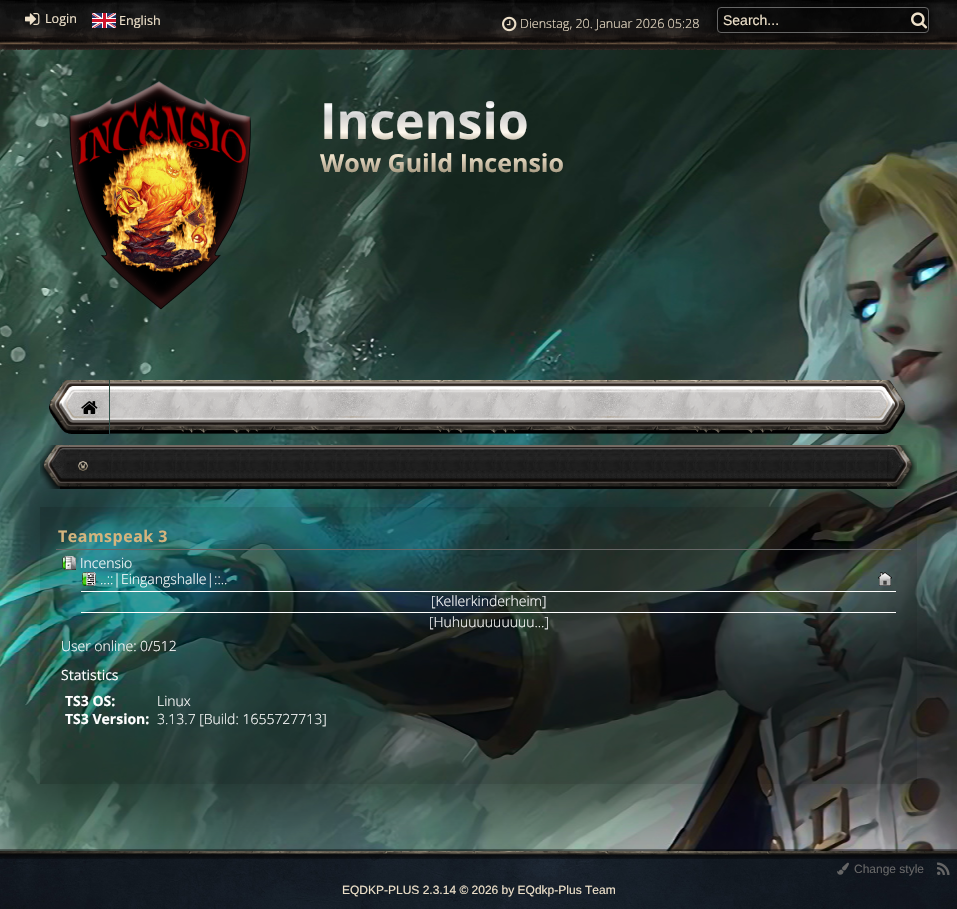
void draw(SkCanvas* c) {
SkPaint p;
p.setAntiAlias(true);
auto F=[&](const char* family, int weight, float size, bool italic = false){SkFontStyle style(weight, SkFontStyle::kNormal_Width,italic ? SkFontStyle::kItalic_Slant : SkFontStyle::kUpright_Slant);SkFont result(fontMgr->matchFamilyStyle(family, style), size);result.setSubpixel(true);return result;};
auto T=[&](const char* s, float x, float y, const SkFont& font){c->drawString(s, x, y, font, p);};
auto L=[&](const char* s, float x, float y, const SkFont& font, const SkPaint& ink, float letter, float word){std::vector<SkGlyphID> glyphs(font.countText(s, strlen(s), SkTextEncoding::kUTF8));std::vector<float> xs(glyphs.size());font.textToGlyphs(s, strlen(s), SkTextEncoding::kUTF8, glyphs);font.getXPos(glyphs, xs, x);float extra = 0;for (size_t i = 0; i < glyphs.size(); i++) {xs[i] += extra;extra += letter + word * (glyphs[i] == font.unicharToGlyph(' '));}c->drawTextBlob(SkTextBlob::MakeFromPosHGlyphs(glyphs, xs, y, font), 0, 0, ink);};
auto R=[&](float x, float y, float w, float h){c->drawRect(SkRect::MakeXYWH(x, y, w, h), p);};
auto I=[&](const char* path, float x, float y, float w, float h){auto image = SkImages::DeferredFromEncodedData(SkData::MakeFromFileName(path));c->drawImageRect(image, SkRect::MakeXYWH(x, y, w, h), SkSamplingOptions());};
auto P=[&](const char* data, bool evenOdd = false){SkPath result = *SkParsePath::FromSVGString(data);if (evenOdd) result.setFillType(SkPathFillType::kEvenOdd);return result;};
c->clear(0xffffffff);
I("1.png",0,48,957,803);
I("2.png",0,0,957,50);
I("3.png",25,13,15,12);
auto f1 = F("Open Sans",400,12.6);
p.setColor(0xffede0c9);
T("Login",45,23,f1);
I("4.png",92,13,24,15);
T("English",119,25,f1);
I("5.png",502,16,15,16);
auto f2 = F("Open Sans",300,12.6);
T("Dienstag, 20. Januar 2026 05:28",520,28,f2);
c->save();
c->clipPath(P("M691 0h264v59h-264zm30 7h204c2 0 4 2 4 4v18c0 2-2 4-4 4h-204c-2 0-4-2-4-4v-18c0-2 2-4 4-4z",true),true);
p.setColor(0xff000000);
p.setMaskFilter(SkMaskFilter::MakeBlur(kNormal_SkBlurStyle, 7.5));
c->drawRoundRect(SkRect::MakeXYWH(715,5,216,30),6,6,p);
p.setMaskFilter(nullptr);
c->restore();
p.setColor(0x99000000);
c->drawRoundRect(SkRect::MakeXYWH(717.5,7.5,211,25),3.5,3.5,p);
p.setStroke(true);
p.setStrokeWidth(1);
p.setColor(0xff666666);
c->drawRoundRect(SkRect::MakeXYWH(717.5,7.5,211,25),3.5,3.5,p);
auto f3 = F("Liberation Sans",400,14);
p.setStroke(false);
p.setColor(0xffede0c9);
T("Search...",723,25,f3);
I("6.png",911,12,17,17);
I("7.png",69,81,182,229);
auto f4 = F("Open Sans",700,50);
{
const SkColor colors[] = {0xffffffff,0xffc6c6c6,0xffffffff,0xffcfcfcf,0xfffef9ef,0xffc7beac,0xffdccdbc};
const float stops[] = {0,.07,.2,.38,.68,.83,1};
const SkPoint ends[] = {{449,95}, {449,150}};
p.setShader(SkGradientShader::MakeLinear(ends, colors, stops, 7, SkTileMode::kClamp));
p.setAlpha(255);
}
T("Incensio",320,139,f4);
auto f5 = F("Open Sans",700,25);
{
const SkColor colors[] = {0xffede0c9,0xff8a7e66};
const float stops[] = {.2,1};
const SkPoint ends[] = {{449,150}, {449,180}};
p.setShader(SkGradientShader::MakeLinear(ends, colors, stops, 2, SkTileMode::kClamp));
p.setAlpha(255);
}
T("Wow Guild Incensio",320,172,f5);
c->save();
c->clipPath(P("M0 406h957v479h-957zm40 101h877v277h-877z",true),true);
p.setShader(nullptr);
p.setColor(0x66000000);
p.setMaskFilter(SkMaskFilter::MakeBlur(kNormal_SkBlurStyle, 25));
c->drawRect(SkRect::MakeXYWH(15,482,927,327),p);
p.setMaskFilter(nullptr);
c->restore();
I("8.png",110,380,736,54);
I("9.png",49,380,60,54);
I("10.png",846,380,60,54);
I("11.png",81,401,17,13);
I("12.png",60,445,837,44);
I("13.png",40,445,30,44);
I("14.png",78,461,10,10);
I("15.png",887,445,30,44);
R(40,507,877,277);
p.setColor(0xff666666);
R(56,549,845,1);
auto f6 = F("Open Sans",700,16);
p.setColor(0xffd4b47d);
L("Teamspeak 3",58,542,f6,p,.5,0);
I("16.png",62,555,14,15);
auto f7 = F("Open Sans",300,14);
p.setColor(0xffffffff);
T("Incensio",80,568,f7);
I("17.png",82,572,14,14);
T("..::|Eingangshalle|::..",100,584,f7);
I("18.png",878,572,14,14);
R(81,591,815,1);
T("[Kellerkinderheim]",431,606,f7);
R(81,612,815,1);
T("[Huhuuuuuuuuu...]",429,627,f7);
T("User online: 0/512",61,651,f7);
auto f8 = F("Open Sans",400,14);
T("Statistics",61,680,f8);
auto f9 = F("Open Sans",700,14);
T("TS3 OS:",65,706,f9);
T("Linux",157,706,f7);
T("TS3 Version:",65,724,f9);
T("3.13.7 [Build: 1655727713]",157,724,f7);
I("19.png",0,854,957,55);
I("20.png",0,849,957,10);
I("21.png",837,862,12,13);
auto f10 = F("Liberation Sans",400,12);
p.setColor(0xff666666);
T("Change style",854,873,f10);
I("22.png",937,862,13,13);
p.setColor(0xffede0c9);
T("EQDKP-PLUS 2.3.14 © 2026 by EQdkp-Plus Team",342,894,f10);
}
